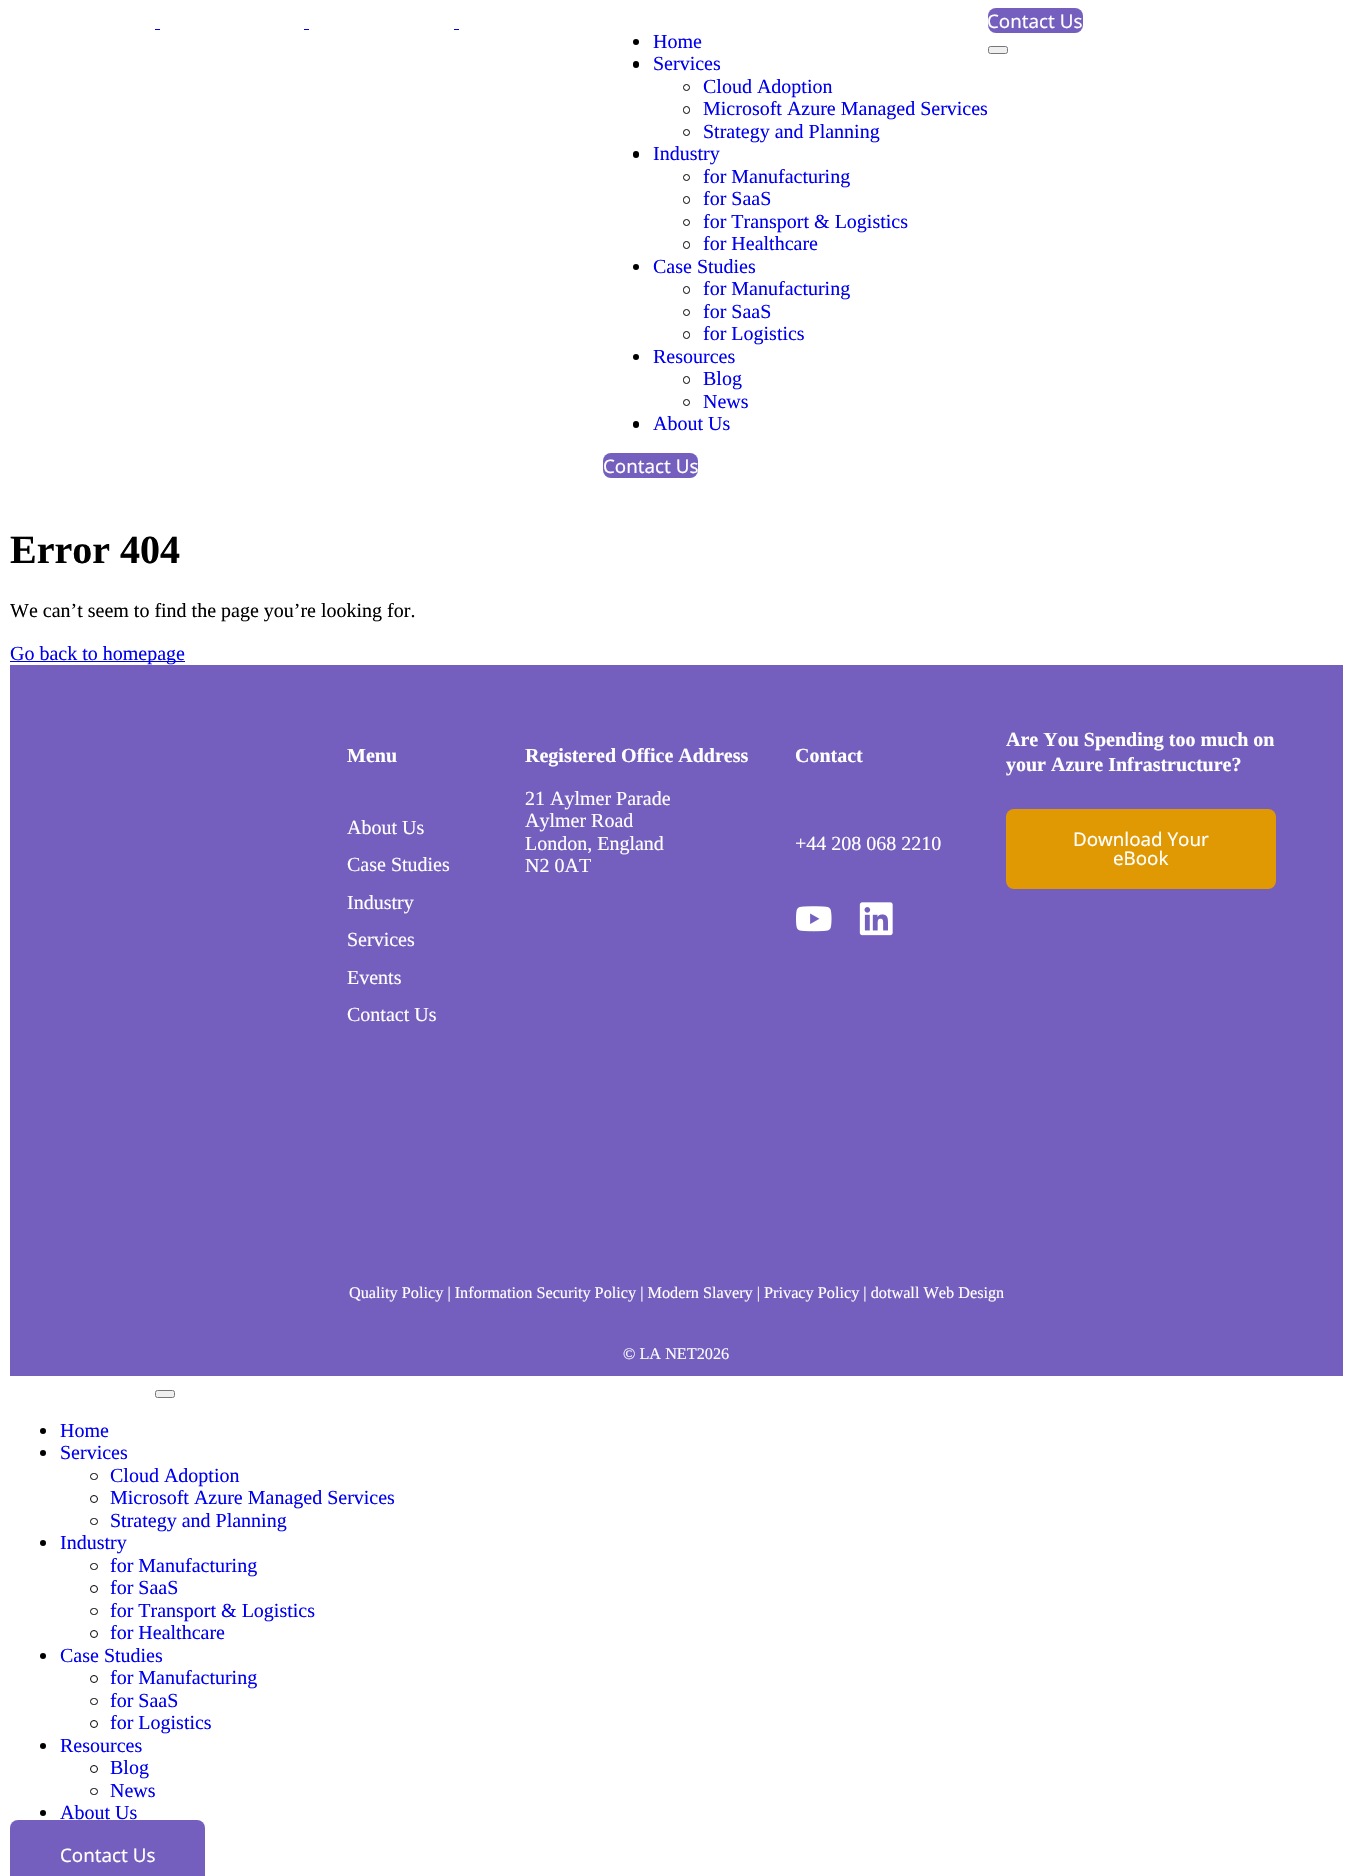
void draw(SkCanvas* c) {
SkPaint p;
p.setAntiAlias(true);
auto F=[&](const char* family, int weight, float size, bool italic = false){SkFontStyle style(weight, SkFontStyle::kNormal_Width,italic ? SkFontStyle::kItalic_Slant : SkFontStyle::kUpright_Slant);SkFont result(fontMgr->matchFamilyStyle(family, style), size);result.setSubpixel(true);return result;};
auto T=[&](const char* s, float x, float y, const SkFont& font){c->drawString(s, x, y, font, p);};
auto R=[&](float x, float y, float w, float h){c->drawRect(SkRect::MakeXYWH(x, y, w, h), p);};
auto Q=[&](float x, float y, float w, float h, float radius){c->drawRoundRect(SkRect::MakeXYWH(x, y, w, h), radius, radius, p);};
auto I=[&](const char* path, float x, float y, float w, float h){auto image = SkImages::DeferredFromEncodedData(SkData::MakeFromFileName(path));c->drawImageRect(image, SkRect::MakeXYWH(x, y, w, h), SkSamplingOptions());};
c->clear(0xffffffff);
p.setColor(0xff755fbe);
Q(988,8,95,25,8);
auto f1 = F("Noto Sans",400,18.75);
p.setColor(0xffffffff);
T("Contact Us",987,28,f1);
p.setColor(0xffefefef);
c->drawRoundRect(SkRect::MakeXYWH(988.5,46.5,19,7),2,2,p);
p.setStroke(true);
p.setStrokeWidth(1);
p.setColor(0xff767676);
c->drawRoundRect(SkRect::MakeXYWH(988.5,46.5,19,7),2,2,p);
p.setStroke(false);
p.setColor(0xff0000ee);
R(155,29,5,1);
R(304,29,5,1);
R(454,29,5,1);
p.setColor(0xff000000);
c->drawCircle(636,42,3,p);
auto f2 = F("Liberation Serif",400,20);
p.setColor(0xff0000ee);
T("Home",653,48,f2);
p.setColor(0xff000000);
Q(633,61,6,7,3);
p.setColor(0xff0000ee);
T("Services",653,70,f2);
p.setStroke(true);
p.setColor(0xff000000);
c->drawCircle(686.5,87.5,3,p);
p.setStroke(false);
p.setColor(0xff0000ee);
T("Cloud Adoption",703,93,f2);
p.setStroke(true);
p.setColor(0xff000000);
c->drawRoundRect(SkRect::MakeXYWH(683.5,106.5,6,7),3,3,p);
p.setStroke(false);
p.setColor(0xff0000ee);
T("Microsoft Azure Managed Services",703,115,f2);
p.setStroke(true);
p.setColor(0xff000000);
c->drawCircle(686.5,132.5,3,p);
p.setStroke(false);
p.setColor(0xff0000ee);
T("Strategy and Planning",703,138,f2);
p.setColor(0xff000000);
Q(633,151,6,7,3);
p.setColor(0xff0000ee);
T("Industry",653,160,f2);
p.setStroke(true);
p.setColor(0xff000000);
c->drawCircle(686.5,177.5,3,p);
p.setStroke(false);
p.setColor(0xff0000ee);
T("for Manufacturing",703,183,f2);
p.setStroke(true);
p.setColor(0xff000000);
c->drawRoundRect(SkRect::MakeXYWH(683.5,196.5,6,7),3,3,p);
p.setStroke(false);
p.setColor(0xff0000ee);
T("for SaaS",703,205,f2);
p.setStroke(true);
p.setColor(0xff000000);
c->drawCircle(686.5,222.5,3,p);
p.setStroke(false);
p.setColor(0xff0000ee);
T("for Transport & Logistics",703,228,f2);
p.setStroke(true);
p.setColor(0xff000000);
c->drawRoundRect(SkRect::MakeXYWH(683.5,241.5,6,7),3,3,p);
p.setStroke(false);
p.setColor(0xff0000ee);
T("for Healthcare",703,250,f2);
p.setColor(0xff000000);
c->drawCircle(636,267,3,p);
p.setColor(0xff0000ee);
T("Case Studies",653,273,f2);
p.setStroke(true);
p.setColor(0xff000000);
c->drawRoundRect(SkRect::MakeXYWH(683.5,286.5,6,7),3,3,p);
p.setStroke(false);
p.setColor(0xff0000ee);
T("for Manufacturing",703,295,f2);
p.setStroke(true);
p.setColor(0xff000000);
c->drawCircle(686.5,312.5,3,p);
p.setStroke(false);
p.setColor(0xff0000ee);
T("for SaaS",703,318,f2);
p.setStroke(true);
p.setColor(0xff000000);
c->drawRoundRect(SkRect::MakeXYWH(683.5,331.5,6,7),3,3,p);
p.setStroke(false);
p.setColor(0xff0000ee);
T("for Logistics",703,340,f2);
p.setColor(0xff000000);
c->drawCircle(636,357,3,p);
p.setColor(0xff0000ee);
T("Resources",653,363,f2);
p.setStroke(true);
p.setColor(0xff000000);
c->drawRoundRect(SkRect::MakeXYWH(683.5,376.5,6,7),3,3,p);
p.setStroke(false);
p.setColor(0xff0000ee);
T("Blog",703,385,f2);
p.setStroke(true);
p.setColor(0xff000000);
c->drawCircle(686.5,402.5,3,p);
p.setStroke(false);
p.setColor(0xff0000ee);
T("News",703,408,f2);
p.setColor(0xff000000);
Q(633,421,6,7,3);
p.setColor(0xff0000ee);
T("About Us",653,430,f2);
p.setColor(0xff755fbe);
Q(603,453,95,25,8);
p.setColor(0xffffffff);
T("Contact Us",603,473,f1);
auto f3 = F("Liberation Serif",700,40);
p.setColor(0xff000000);
T("Error 404",10,563,f3);
T("We can’t seem to find the page you’re looking for.",10,617,f2);
p.setColor(0xff0000ee);
R(10,661,175,1);
T("Go back to homepage",10,660,f2);
p.setColor(0xff755fbe);
R(10,665,1333,711);
auto f4 = F("Liberation Serif",700,20);
p.setColor(0xffffffff);
T("Menu",347,762,f4);
T("About Us",347,834,f2);
T("Case Studies",347,871,f2);
T("Industry",347,909,f2);
T("Services",347,946,f2);
T("Events",347,984,f2);
T("Contact Us",347,1021,f2);
T("Registered Office Address",525,762,f4);
T("21 Aylmer Parade",525,805,f2);
T("Aylmer Road",525,827,f2);
T("London, England",525,850,f2);
T("N2 0AT",525,872,f2);
T("Contact",795,762,f4);
T("+44 208 068 2210",795,850,f2);
I("1.png",796,906,36,26);
I("2.png",859,902,34,34);
T("Are You Spending too much on",1006,746,f4);
T("your Azure Infrastructure?",1006,771,f4);
p.setColor(0xffe09902);
Q(1006,809,270,80,8);
p.setColor(0xffffffff);
T("Download Your",1073,846,f1);
T("eBook",1113,865,f1);
auto f5 = F("Liberation Serif",400,16.25);
T("Quality Policy | Information Security Policy | Modern Slavery | Privacy Policy | dotwall Web Design",349,1298,f5);
p.setColor(0xfff8fcfc);
T("© LA NET2026",623,1359,f5);
p.setColor(0xffefefef);
c->drawRoundRect(SkRect::MakeXYWH(155.5,1390.5,19,7),2,2,p);
p.setStroke(true);
p.setColor(0xff767676);
c->drawRoundRect(SkRect::MakeXYWH(155.5,1390.5,19,7),2,2,p);
p.setStroke(false);
p.setColor(0xff000000);
c->drawCircle(43,1431,3,p);
p.setColor(0xff0000ee);
T("Home",60,1437,f2);
p.setColor(0xff000000);
c->drawCircle(43,1453,3,p);
p.setColor(0xff0000ee);
T("Services",60,1459,f2);
p.setStroke(true);
p.setColor(0xff000000);
c->drawRoundRect(SkRect::MakeXYWH(90.5,1473.5,7,6),3,3,p);
p.setStroke(false);
p.setColor(0xff0000ee);
T("Cloud Adoption",110,1482,f2);
p.setStroke(true);
p.setColor(0xff000000);
c->drawCircle(94,1499,3.5,p);
p.setStroke(false);
p.setColor(0xff0000ee);
T("Microsoft Azure Managed Services",110,1504,f2);
p.setStroke(true);
p.setColor(0xff000000);
c->drawRoundRect(SkRect::MakeXYWH(90.5,1518.5,7,6),3,3,p);
p.setStroke(false);
p.setColor(0xff0000ee);
T("Strategy and Planning",110,1527,f2);
p.setColor(0xff000000);
c->drawCircle(43,1543,3,p);
p.setColor(0xff0000ee);
T("Industry",60,1549,f2);
p.setStroke(true);
p.setColor(0xff000000);
c->drawRoundRect(SkRect::MakeXYWH(90.5,1563.5,7,6),3,3,p);
p.setStroke(false);
p.setColor(0xff0000ee);
T("for Manufacturing",110,1572,f2);
p.setStroke(true);
p.setColor(0xff000000);
c->drawCircle(94,1589,3.5,p);
p.setStroke(false);
p.setColor(0xff0000ee);
T("for SaaS",110,1594,f2);
p.setStroke(true);
p.setColor(0xff000000);
c->drawRoundRect(SkRect::MakeXYWH(90.5,1608.5,7,6),3,3,p);
p.setStroke(false);
p.setColor(0xff0000ee);
T("for Transport & Logistics",110,1617,f2);
p.setStroke(true);
p.setColor(0xff000000);
c->drawCircle(94,1634,3.5,p);
p.setStroke(false);
p.setColor(0xff0000ee);
T("for Healthcare",110,1639,f2);
p.setColor(0xff000000);
c->drawCircle(43,1656,3,p);
p.setColor(0xff0000ee);
T("Case Studies",60,1662,f2);
p.setStroke(true);
p.setColor(0xff000000);
c->drawCircle(94,1679,3.5,p);
p.setStroke(false);
p.setColor(0xff0000ee);
T("for Manufacturing",110,1684,f2);
p.setStroke(true);
p.setColor(0xff000000);
c->drawRoundRect(SkRect::MakeXYWH(90.5,1698.5,7,6),3,3,p);
p.setStroke(false);
p.setColor(0xff0000ee);
T("for SaaS",110,1707,f2);
p.setStroke(true);
p.setColor(0xff000000);
c->drawCircle(94,1724,3.5,p);
p.setStroke(false);
p.setColor(0xff0000ee);
T("for Logistics",110,1729,f2);
p.setColor(0xff000000);
c->drawCircle(43,1746,3,p);
p.setColor(0xff0000ee);
T("Resources",60,1752,f2);
p.setStroke(true);
p.setColor(0xff000000);
c->drawCircle(94,1769,3.5,p);
p.setStroke(false);
p.setColor(0xff0000ee);
T("Blog",110,1774,f2);
p.setStroke(true);
p.setColor(0xff000000);
c->drawRoundRect(SkRect::MakeXYWH(90.5,1788.5,7,6),3,3,p);
p.setStroke(false);
p.setColor(0xff0000ee);
T("News",110,1797,f2);
p.setColor(0xff000000);
c->drawCircle(43,1813,3,p);
p.setColor(0xff0000ee);
T("About Us",60,1819,f2);
p.setColor(0xff755fbe);
Q(10,1820,195,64,8);
p.setColor(0xffffffff);
T("Contact Us",60,1862,f1);
}
